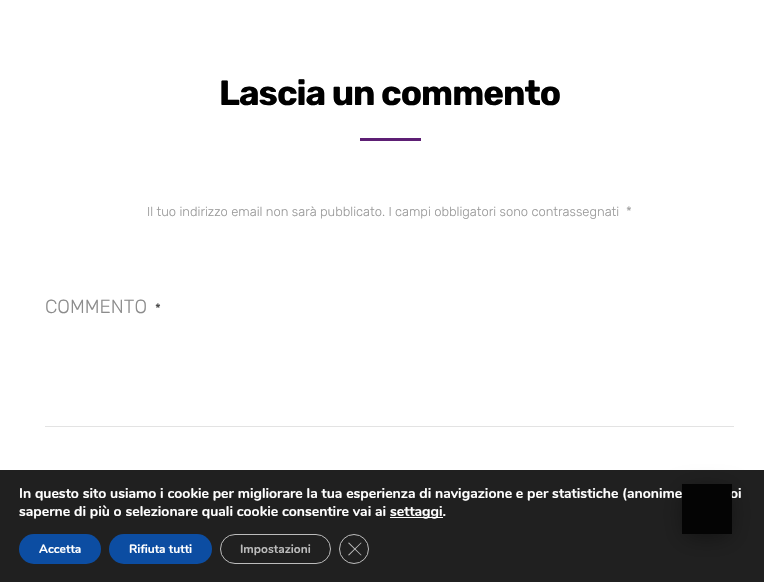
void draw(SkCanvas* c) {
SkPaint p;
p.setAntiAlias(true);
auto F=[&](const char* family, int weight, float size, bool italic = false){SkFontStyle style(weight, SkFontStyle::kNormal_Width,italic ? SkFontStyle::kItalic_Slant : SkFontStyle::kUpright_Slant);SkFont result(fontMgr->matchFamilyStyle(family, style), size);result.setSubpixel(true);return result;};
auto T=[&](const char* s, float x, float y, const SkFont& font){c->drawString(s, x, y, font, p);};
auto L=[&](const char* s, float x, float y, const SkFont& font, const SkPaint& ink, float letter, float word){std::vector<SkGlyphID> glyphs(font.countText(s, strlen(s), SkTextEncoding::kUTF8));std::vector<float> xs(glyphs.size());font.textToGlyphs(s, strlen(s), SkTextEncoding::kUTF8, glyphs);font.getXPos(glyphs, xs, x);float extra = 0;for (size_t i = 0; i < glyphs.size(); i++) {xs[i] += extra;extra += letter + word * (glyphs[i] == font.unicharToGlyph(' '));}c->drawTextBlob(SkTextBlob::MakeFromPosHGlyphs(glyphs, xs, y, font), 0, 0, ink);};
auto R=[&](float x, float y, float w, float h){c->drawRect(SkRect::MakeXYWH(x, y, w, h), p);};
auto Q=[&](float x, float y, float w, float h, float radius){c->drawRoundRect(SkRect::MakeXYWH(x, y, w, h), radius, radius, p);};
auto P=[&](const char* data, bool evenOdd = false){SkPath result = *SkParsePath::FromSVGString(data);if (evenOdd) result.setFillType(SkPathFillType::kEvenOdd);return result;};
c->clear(0xffffffff);
auto f1 = F("Rubik",700,35);
p.setColor(0xff000000);
L("Lascia un commento",219,105,f1,p,-1,0);
p.setColor(0xff5d1f74);
R(360,138,61,3);
auto f2 = F("Rubik",300,13);
p.setColor(0xff9a9a9a);
T("Il tuo indirizzo email non sarà pubblicato. I campi obbligatori sono contrassegnati",147,216,f2);
T("*",626,216,f2);
auto f3 = F("Rubik",300,19);
p.setColor(0xff8c8c8c);
T("COMMENTO",45,313,f3);
auto f4 = F("Rubik",400,13);
p.setColor(0xff444444);
T("*",155,313,f4);
p.setColor(0xffe3e3e3);
R(45,426,689,1);
p.setColor(0xff202020);
R(0,470,764,112);
c->save();
c->clipPath(P("M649 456h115v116h-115zm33 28h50v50h-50z",true),true);
p.setColor(0x73000000);
p.setMaskFilter(SkMaskFilter::MakeBlur(kNormal_SkBlurStyle, 11.5));
c->drawRect(SkRect::MakeXYWH(685,492,44,44),p);
p.setMaskFilter(nullptr);
c->restore();
auto f5 = F("Nunito",700,14);
p.setColor(0xffffffff);
T("oi",730,498,f5);
p.setColor(0xe3000000);
R(682,484,50,50);
p.setColor(0xffffffff);
T("In questo sito usiamo i cookie per migliorare la tua esperienza di navigazione e per statistiche (anonime",19,498,f5);
T("saperne di più o selezionare quali cookie consentire vai ai",19,516,f5);
R(390,517,53,1);
T("settaggi.",390,516,f5);
p.setColor(0xff0c4da2);
Q(19,534,82,30,15);
auto f6 = F("Nunito",700,12);
p.setColor(0xffffffff);
T("Accetta",39,553,f6);
p.setColor(0xff0c4da2);
Q(109,534,103,30,15);
p.setColor(0xffffffff);
T("Rifiuta tutti",129,553,f6);
p.setStroke(true);
p.setStrokeWidth(1);
p.setColor(0xffbcbcbc);
c->drawRoundRect(SkRect::MakeXYWH(220.5,534.5,110,29),14.5,14.5,p);
p.setStroke(false);
T("Impostazioni",240,553,f6);
p.setStroke(true);
c->drawCircle(354,549,14.5,p);
p.setStroke(false);
c->drawPath(P("M361 542.5l.5 .5l-12.5 12.5l-1-.5z"),p);
c->drawPath(P("M348 543l1-.5l12.5 12.5l-.5 .5z"),p);
}
